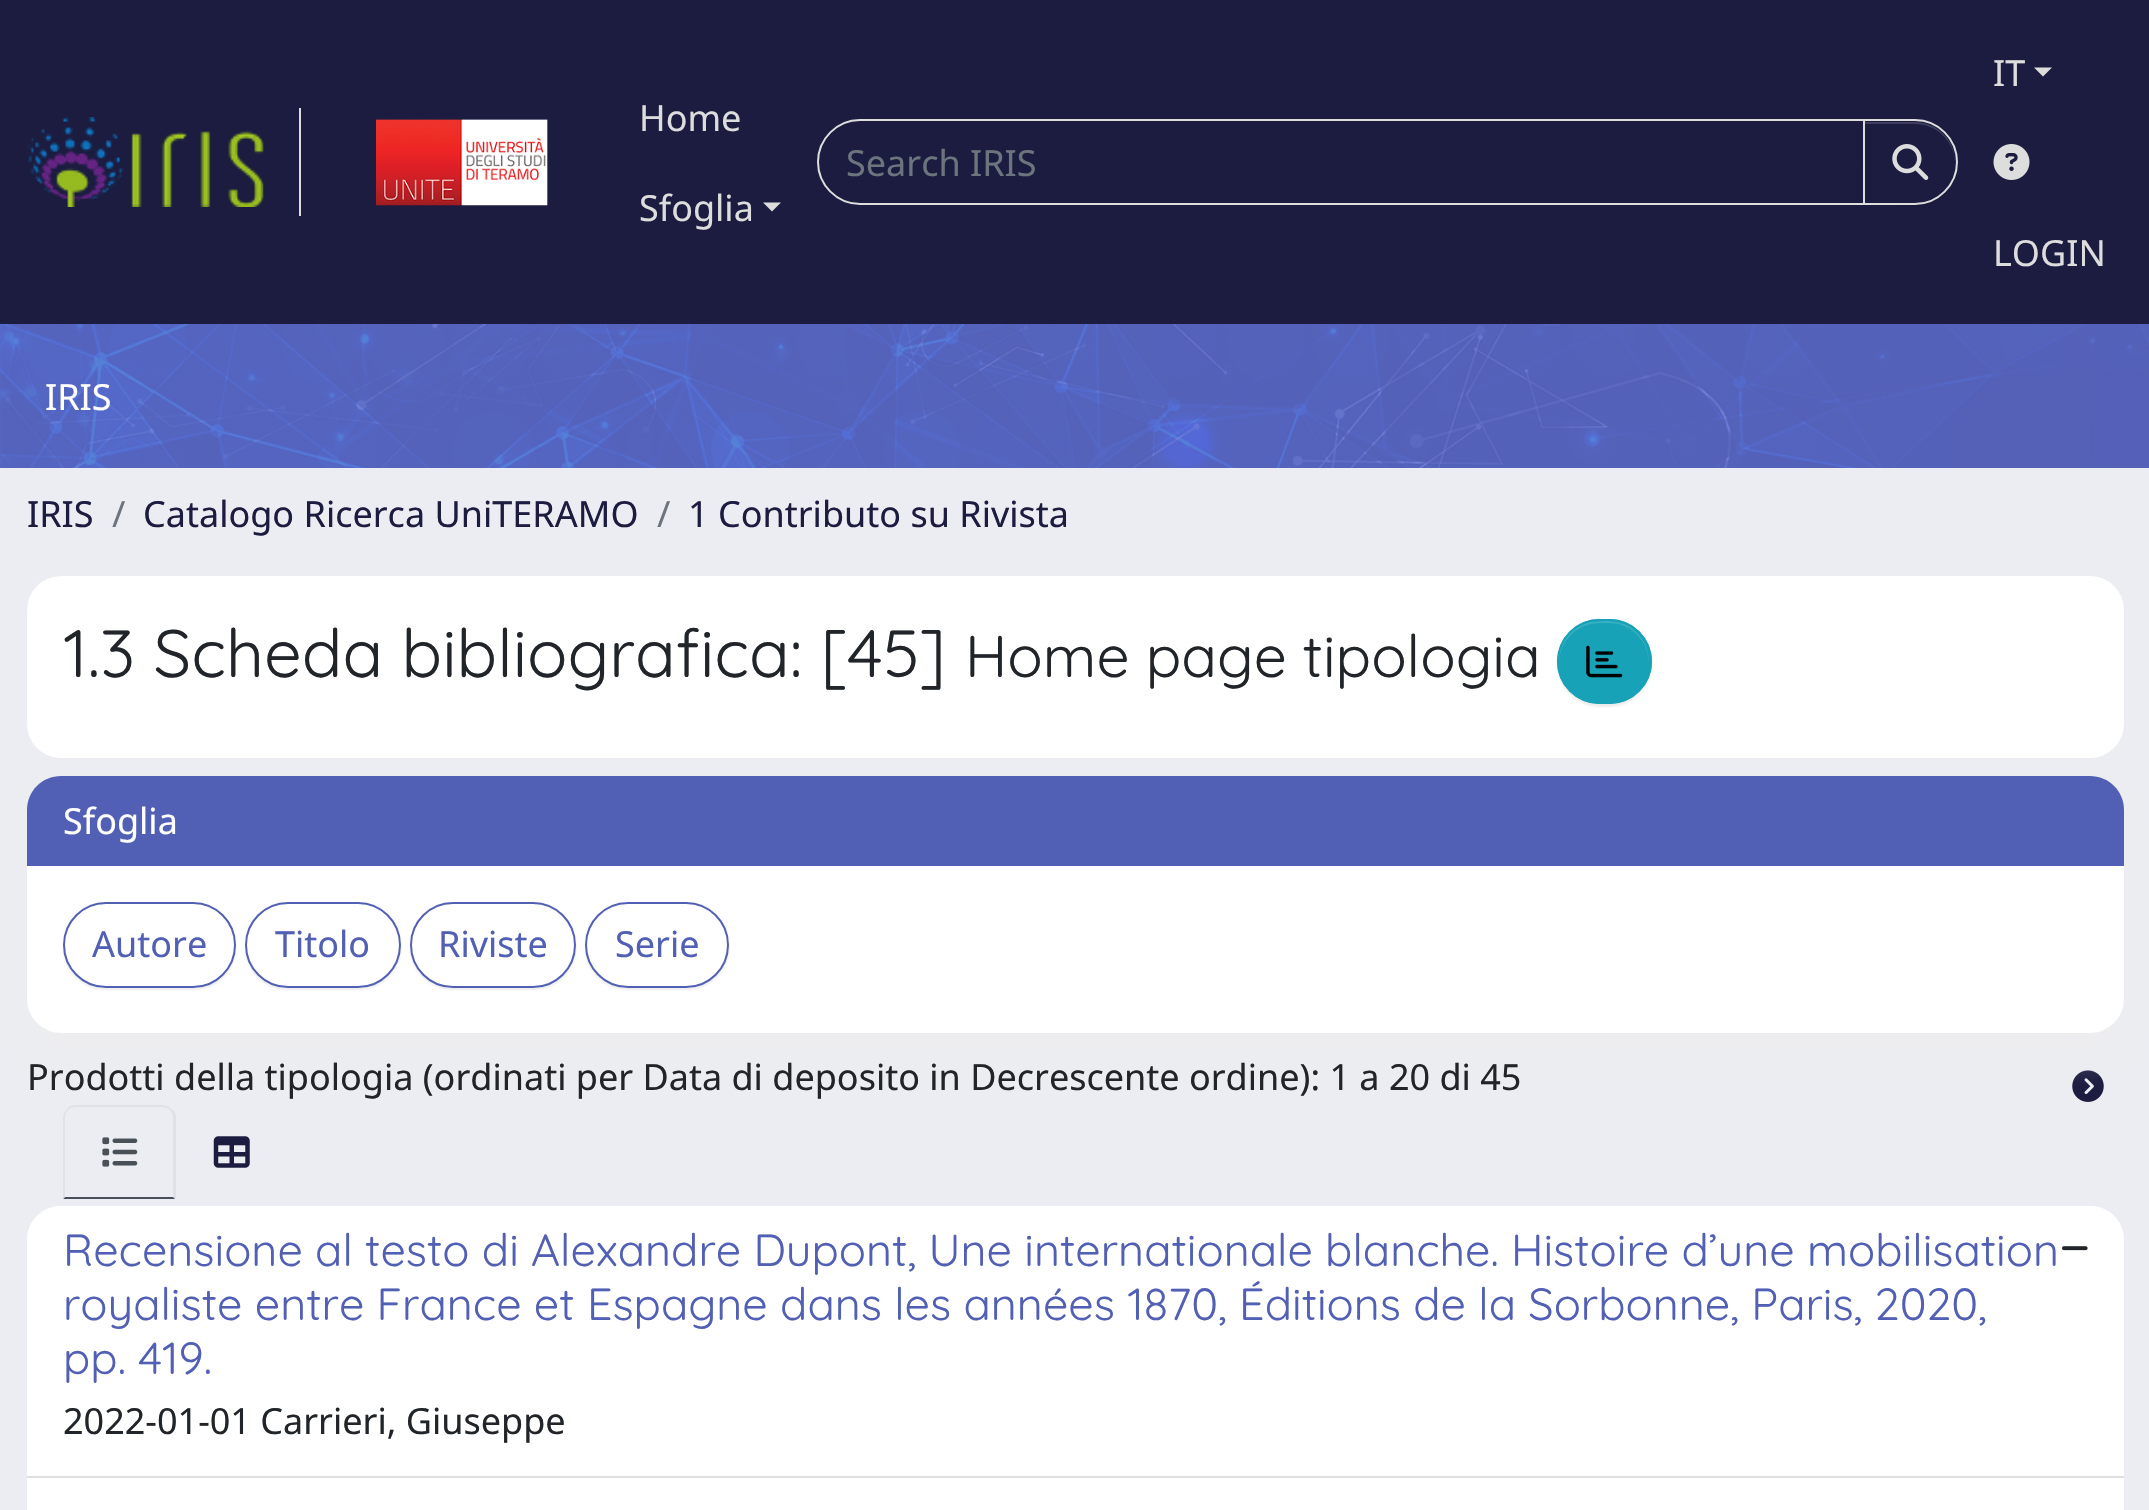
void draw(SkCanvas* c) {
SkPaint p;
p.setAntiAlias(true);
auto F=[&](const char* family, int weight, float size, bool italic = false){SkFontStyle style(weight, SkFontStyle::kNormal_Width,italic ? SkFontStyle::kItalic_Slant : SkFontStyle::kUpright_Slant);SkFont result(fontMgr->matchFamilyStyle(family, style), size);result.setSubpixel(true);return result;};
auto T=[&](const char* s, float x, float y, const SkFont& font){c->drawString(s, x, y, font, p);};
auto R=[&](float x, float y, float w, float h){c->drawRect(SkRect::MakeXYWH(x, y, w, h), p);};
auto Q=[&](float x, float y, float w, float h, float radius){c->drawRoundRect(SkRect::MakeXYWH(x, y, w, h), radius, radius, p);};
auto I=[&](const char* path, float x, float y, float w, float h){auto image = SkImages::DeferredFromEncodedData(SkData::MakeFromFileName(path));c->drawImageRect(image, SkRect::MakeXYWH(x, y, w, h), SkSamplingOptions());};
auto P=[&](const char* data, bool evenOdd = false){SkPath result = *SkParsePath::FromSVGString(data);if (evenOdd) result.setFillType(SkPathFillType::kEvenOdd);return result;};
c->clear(0xffecedf2);
p.setColor(0xff1b1c40);
R(0,0,2149,324);
p.setColor(0xffdddddd);
R(299,108,2,108);
I("1.png",27,117,237,90);
I("2.png",376,119,172,87);
auto f1 = F("Noto Sans",400,36);
T("Home",639,131,f1);
T("Sfoglia",639,221,f1);
c->drawPath(P("M763 202.5h18l-9 9z"),p);
p.setStroke(true);
p.setStrokeWidth(2);
c->drawPath(P("M860 120h1004v84h-1004c-23 0-42-19-42-42c0-23 19-42 42-42z"),p);
p.setStroke(false);
p.setColor(0xff6c757d);
T("Search IRIS",846,176,f1);
p.setColor(0x12000000);
p.setMaskFilter(SkMaskFilter::MakeBlur(kNormal_SkBlurStyle, 1));
c->drawRoundRect(SkRect::MakeXYWH(1863,122,95,85),42.5,42.5,p);
p.setMaskFilter(nullptr);
p.setColor(0xff1b1c40);
c->drawPath(P("M1863 119h52c23.5 0 43 19.5 43 43c0 23.5-19.5 43-43 43h-52z"),p);
p.setColor(0xff3d3e5d);
c->drawPath(P("M1865 124h50c22 0 40 18 40 39v-1c0-22-18-40-41-40h-49z"),p);
p.setStroke(true);
p.setColor(0xffdddddd);
c->drawPath(P("M1864 120h51c23 0 42 19 42 42c0 23-19 42-42 42h-51z"),p);
I("3.png",1892,144,37,36);
p.setStroke(false);
T("IT",1993,86,f1);
c->drawPath(P("M2034 67.5h18l-9 9z"),p);
I("4.png",1993,144,37,36);
T("LOGIN",1993,266,f1);
I("5.png",0,324,2149,144);
p.setColor(0xffffffff);
T("IRIS",45,410,f1);
p.setColor(0xff1b1c40);
T("IRIS",27,527,f1);
p.setColor(0xff6c757d);
T("/",112,527,f1);
p.setColor(0xff1b1c40);
T("Catalogo Ricerca UniTERAMO",143,527,f1);
p.setColor(0xff6c757d);
T("/",657,527,f1);
p.setColor(0xff1b1c40);
T("1 Contributo su Rivista",688,527,f1);
p.setColor(0xffffffff);
Q(27,576,2097,182,34);
auto f2 = F("Quicksand",400,67);
p.setColor(0xff212529);
T("1.3 Scheda bibliografica: [45]",63,677,f2);
auto f3 = F("Quicksand",400,58.75);
T("Home page tipologia",965,677,f3);
p.setColor(0x12000000);
p.setMaskFilter(SkMaskFilter::MakeBlur(kNormal_SkBlurStyle, 1));
c->drawRoundRect(SkRect::MakeXYWH(1557,621,95,86),43,43,p);
p.setMaskFilter(nullptr);
p.setColor(0xff17a2b8);
Q(1557,619,95,85,42.5);
p.setColor(0xff3ab0c3);
c->drawPath(P("M1600 623h9c22 0 39 17 40 40c0-17-9-32-25-39c-6-2-12-3-18-3l-15 1c-19 4-33 21-32 41c1-23 18-40 41-40z"),p);
p.setStroke(true);
p.setColor(0xff17a2b8);
c->drawRoundRect(SkRect::MakeXYWH(1558,620,93,83),41.5,41.5,p);
I("6.png",1586,645,37,33);
I("7.png",2072,1070,32,32);
p.setStroke(false);
p.setColor(0xffeeeeee);
p.setMaskFilter(SkMaskFilter::MakeBlur(kNormal_SkBlurStyle, 17));
c->drawRoundRect(SkRect::MakeXYWH(34,806,2083,243),27,27,p);
p.setMaskFilter(nullptr);
p.setColor(0xffffffff);
Q(27,776,2097,257,34);
p.setColor(0xff515fb5);
c->drawPath(P("M61 776h2029c19 0 34 15 34 34v56h-2097v-56c0-19 15-34 34-34z"),p);
p.setColor(0xffffffff);
T("Sfoglia",63,834,f1);
c->save();
c->clipPath(P("M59 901h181v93h-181zm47 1h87c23.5 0 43 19.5 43 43c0 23.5-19.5 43-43 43h-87c-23.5 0-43-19.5-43-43c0-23.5 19.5-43 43-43z",true),true);
p.setColor(0x12000000);
p.setMaskFilter(SkMaskFilter::MakeBlur(kNormal_SkBlurStyle, 1));
c->drawRoundRect(SkRect::MakeXYWH(63,905,173,85),42.5,42.5,p);
p.setMaskFilter(nullptr);
c->restore();
p.setStroke(true);
p.setColor(0xff515fb5);
c->drawRoundRect(SkRect::MakeXYWH(64,903,171,84),42,42,p);
p.setStroke(false);
T("Autore",92,957,f1);
c->save();
c->clipPath(P("M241 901h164v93h-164zm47 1h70c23.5 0 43 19.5 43 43c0 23.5-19.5 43-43 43h-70c-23.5 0-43-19.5-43-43c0-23.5 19.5-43 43-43z",true),true);
p.setColor(0x12000000);
p.setMaskFilter(SkMaskFilter::MakeBlur(kNormal_SkBlurStyle, 1));
c->drawRoundRect(SkRect::MakeXYWH(245,905,156,85),42.5,42.5,p);
p.setMaskFilter(nullptr);
c->restore();
p.setStroke(true);
p.setColor(0xff515fb5);
c->drawRoundRect(SkRect::MakeXYWH(246,903,154,84),42,42,p);
p.setStroke(false);
T("Titolo",275,957,f1);
c->save();
c->clipPath(P("M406 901h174v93h-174zm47 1h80c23.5 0 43 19.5 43 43c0 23.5-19.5 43-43 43h-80c-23.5 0-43-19.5-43-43c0-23.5 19.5-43 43-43z",true),true);
p.setColor(0x12000000);
p.setMaskFilter(SkMaskFilter::MakeBlur(kNormal_SkBlurStyle, 1));
c->drawRoundRect(SkRect::MakeXYWH(410,905,166,85),42.5,42.5,p);
p.setMaskFilter(nullptr);
c->restore();
p.setStroke(true);
p.setColor(0xff515fb5);
c->drawRoundRect(SkRect::MakeXYWH(411,903,164,84),42,42,p);
p.setStroke(false);
T("Riviste",438,957,f1);
c->save();
c->clipPath(P("M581 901h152v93h-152zm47 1h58c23.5 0 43 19.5 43 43c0 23.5-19.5 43-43 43h-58c-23.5 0-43-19.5-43-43c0-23.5 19.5-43 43-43z",true),true);
p.setColor(0x12000000);
p.setMaskFilter(SkMaskFilter::MakeBlur(kNormal_SkBlurStyle, 1));
c->drawRoundRect(SkRect::MakeXYWH(585,905,144,85),42.5,42.5,p);
p.setMaskFilter(nullptr);
c->restore();
p.setStroke(true);
p.setColor(0xff515fb5);
c->drawRoundRect(SkRect::MakeXYWH(586,903,142,84),42,42,p);
p.setStroke(false);
T("Serie",615,957,f1);
p.setColor(0xff212529);
T("Prodotti della tipologia (ordinati per Data di deposito in Decrescente ordine): 1 a 20 di 45",27,1090,f1);
p.setColor(0xffdee2e6);
c->drawPath(P("M76 1105c-3 0-7 1-9 4l1 1c2-2 5-3 8-3h86c3 0 6 1 8 3l1-1c-2-3-6-4-9-4z"),p);
c->drawPath(P("M171 1109c2 1 4 3 5 6v84l-3-2v-79c0-3-1-6-3-8z"),p);
p.setColor(0xff495057);
c->drawPath(P("M175 1199h-112l2-2h108z"),p);
p.setColor(0xffdee2e6);
c->drawPath(P("M63 1118v81l2-2v-79c0-3 1-6 3-8l-1-1c-2 2-4 5-4 9z"),p);
I("8.png",102,1137,36,30);
I("9.png",213,1136,37,32);
p.setColor(0xffffffff);
Q(27,1206,2097,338,34);
c->drawPath(P("M61 1206h2029c19 0 34 15 34 34v238h-2097v-238c0-19 15-34 34-34z"),p);
p.setColor(0xffdfdfdf);
R(27,1476,2097,2);
auto f4 = F("Quicksand",400,45);
p.setColor(0xff515fb5);
T("Recensione al testo di Alexandre Dupont, Une internationale blanche. Histoire d’une mobilisation",63,1266,f4);
T("royaliste entre France et Espagne dans les années 1870, Éditions de la Sorbonne, Paris, 2020,",63,1320,f4);
T("pp. 419.",63,1374,f4);
I("10.png",2062,1246,26,5);
p.setColor(0xff212529);
T("2022-01-01 Carrieri, Giuseppe",63,1434,f1);
}
